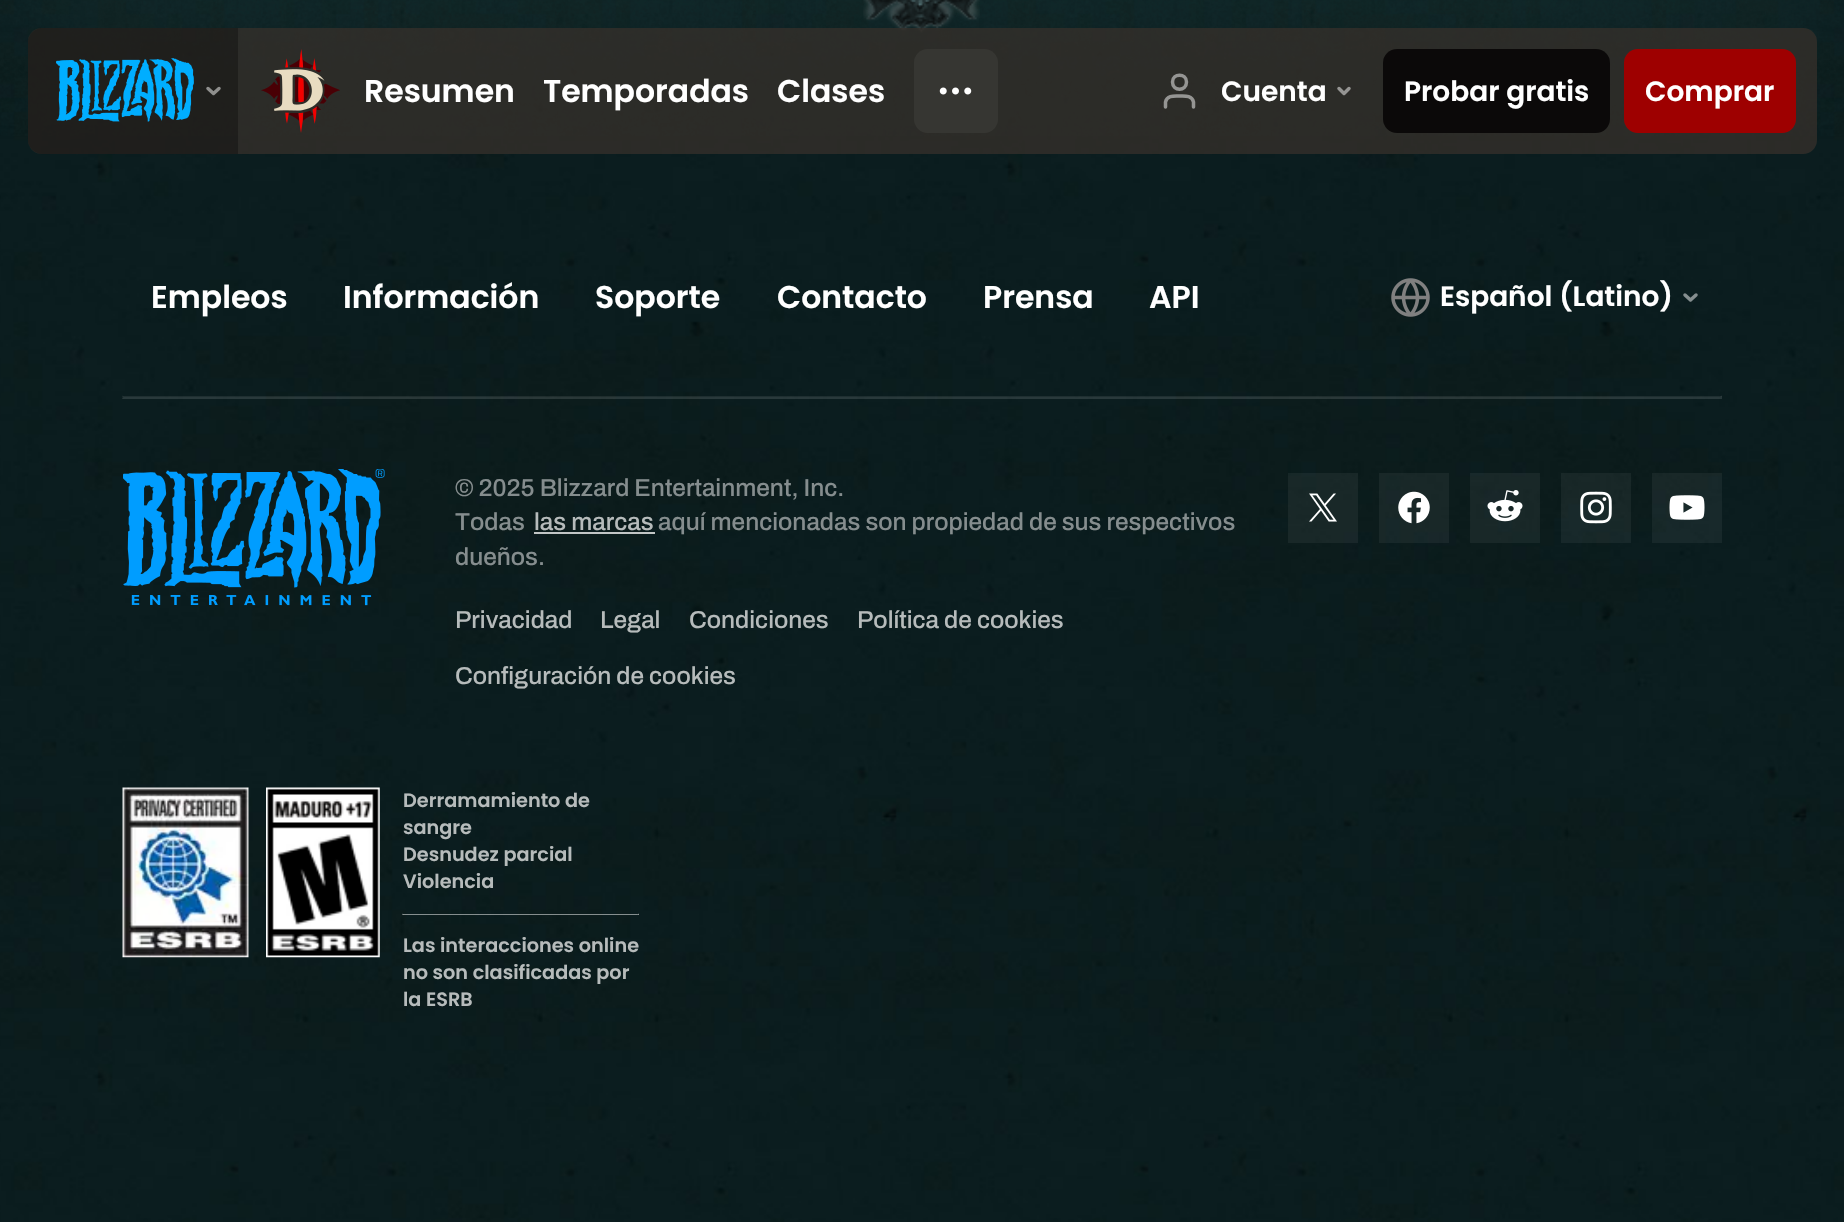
void draw(SkCanvas* c) {
SkPaint p;
p.setAntiAlias(true);
auto F=[&](const char* family, int weight, float size, bool italic = false){SkFontStyle style(weight, SkFontStyle::kNormal_Width,italic ? SkFontStyle::kItalic_Slant : SkFontStyle::kUpright_Slant);SkFont result(fontMgr->matchFamilyStyle(family, style), size);result.setSubpixel(true);return result;};
auto T=[&](const char* s, float x, float y, const SkFont& font){c->drawString(s, x, y, font, p);};
auto R=[&](float x, float y, float w, float h){c->drawRect(SkRect::MakeXYWH(x, y, w, h), p);};
auto Q=[&](float x, float y, float w, float h, float radius){c->drawRoundRect(SkRect::MakeXYWH(x, y, w, h), radius, radius, p);};
auto I=[&](const char* path, float x, float y, float w, float h){auto image = SkImages::DeferredFromEncodedData(SkData::MakeFromFileName(path));c->drawImageRect(image, SkRect::MakeXYWH(x, y, w, h), SkSamplingOptions());};
auto P=[&](const char* data, bool evenOdd = false){SkPath result = *SkParsePath::FromSVGString(data);if (evenOdd) result.setFillType(SkPathFillType::kEvenOdd);return result;};
c->clear(0xffffffff);
I("1.png",0,0,1844,1222);
I("5.png",0,0,1844,136);
I("6.png",863,0,117,33);
p.setColor(0xcc332e29);
Q(28,28,1789,126,14);
p.setColor(0x4d000000);
c->drawPath(P("M42 28h196v126h-196c-7.5 0-14-6.5-14-14v-98c0-7.5 6.5-14 14-14z"),p);
I("2.png",56,58,138,64);
p.setStroke(true);
p.setStrokeWidth(3.5);
p.setStrokeCap(SkPaint::kRound_Cap);
p.setStrokeJoin(SkPaint::kRound_Join);
p.setColor(0xff8f8f8d);
c->drawPath(P("M208 88.5l5.5 5l5.5-5"),p);
I("3.png",261,49,79,84);
auto f1 = F("Poppins",600,31.5);
p.setStroke(false);
p.setColor(0xffffffff);
T("Resumen",364,102,f1);
T("Temporadas",543,102,f1);
T("Clases",777,102,f1);
p.setColor(0xff363632);
Q(914,49,84,84,14);
I("4.png",939,87,33,8);
p.setStroke(true);
p.setColor(0xff959593);
c->drawPath(P("M1193.5 107v-5c-1.5-7-9-6-14-6c-5 0-12.5-1-14 6v5m21-25c0 9.5-14 9.5-14 0c0-9 14-9 14 0"),p);
auto f2 = F("Poppins",600,28);
p.setStroke(false);
p.setColor(0xffffffff);
T("Cuenta",1221,101,f2);
p.setStroke(true);
p.setColor(0xff959593);
c->drawPath(P("M1339 88.5l5 5l5-5"),p);
p.setStroke(false);
p.setColor(0xff0b0909);
Q(1383,49,227,84,14);
p.setColor(0xffffffff);
T("Probar gratis",1404,101,f2);
p.setColor(0xff9e0000);
Q(1624,49,172,84,14);
p.setColor(0xffffffff);
T("Comprar",1645,101,f2);
T("Empleos",151,308,f1);
T("Información",343,308,f1);
T("Soporte",595,308,f1);
T("Contacto",777,308,f1);
T("Prensa",983,308,f1);
T("API",1149,308,f1);
I("7.png",1391,278,39,39);
T("Español (Latino)",1440,306,f2);
p.setStroke(true);
p.setColor(0xff858e8f);
c->drawPath(P("M1685 295l5.5 5l5.5-5"),p);
p.setStroke(false);
p.setColor(0x1faaaaaa);
c->drawPath(P("M122 396h1600l-2 1h-1596z"),p);
p.setColor(0x1fffffff);
c->drawPath(P("M1722 395.5v3.5l-2-2z"),p);
c->drawPath(P("M1722 399h-1600l2-2h1596z"),p);
p.setColor(0x1faaaaaa);
c->drawPath(P("M122.5 399v-3.5l1.5 1.5z"),p);
I("8.png",123,469,262,137);
auto f3 = F("Archivo",500,24.5);
p.setColor(0xff858d8e);
T("© 2025 Blizzard Entertainment, Inc.",455,496,f3);
T("Todas",455,530,f3);
p.setColor(0xffb6bbbb);
T("las marcas",534,530,f3);
p.setColor(0xffc2c6c6);
R(534,532,121,2);
p.setColor(0xff858d8e);
T("aquí mencionadas son propiedad de sus respectivos",658,530,f3);
T("dueños.",455,565,f3);
p.setColor(0xffb6bbbb);
T("Privacidad",455,628,f3);
T("Legal",600,628,f3);
T("Condiciones",689,628,f3);
T("Política de cookies",857,628,f3);
T("Configuración de cookies",455,684,f3);
p.setColor(0x0dffffff);
R(1288,473,70,70);
I("9.png",1309,493,28,29);
R(1379,473,70,70);
I("10.png",1398,491,32,33);
R(1470,473,70,70);
I("11.png",1487,490,36,32);
R(1561,473,70,70);
I("12.png",1580,491,32,33);
R(1652,473,70,70);
I("13.png",1669,495,36,25);
I("14.png",122,787,127,171);
I("15.png",266,787,114,171);
auto f4 = F("Poppins",600,19.25);
p.setColor(0xffb6bbbb);
T("Derramamiento de",403,807,f4);
T("sangre",403,834,f4);
T("Desnudez parcial",403,861,f4);
T("Violencia",403,888,f4);
p.setColor(0x80ffffff);
c->drawPath(P("M402 914h237l-2 1h-233z"),p);
p.setColor(0xff959d9e);
c->drawPath(P("M639 913.5v1.5h-2z"),p);
p.setColor(0x80ffffff);
c->drawPath(P("M402.5 915v-1.5l1.5 1.5z"),p);
p.setColor(0xffb6bbbb);
T("Las interacciones online",403,952,f4);
T("no son clasificadas por",403,979,f4);
T("la ESRB",403,1006,f4);
}
